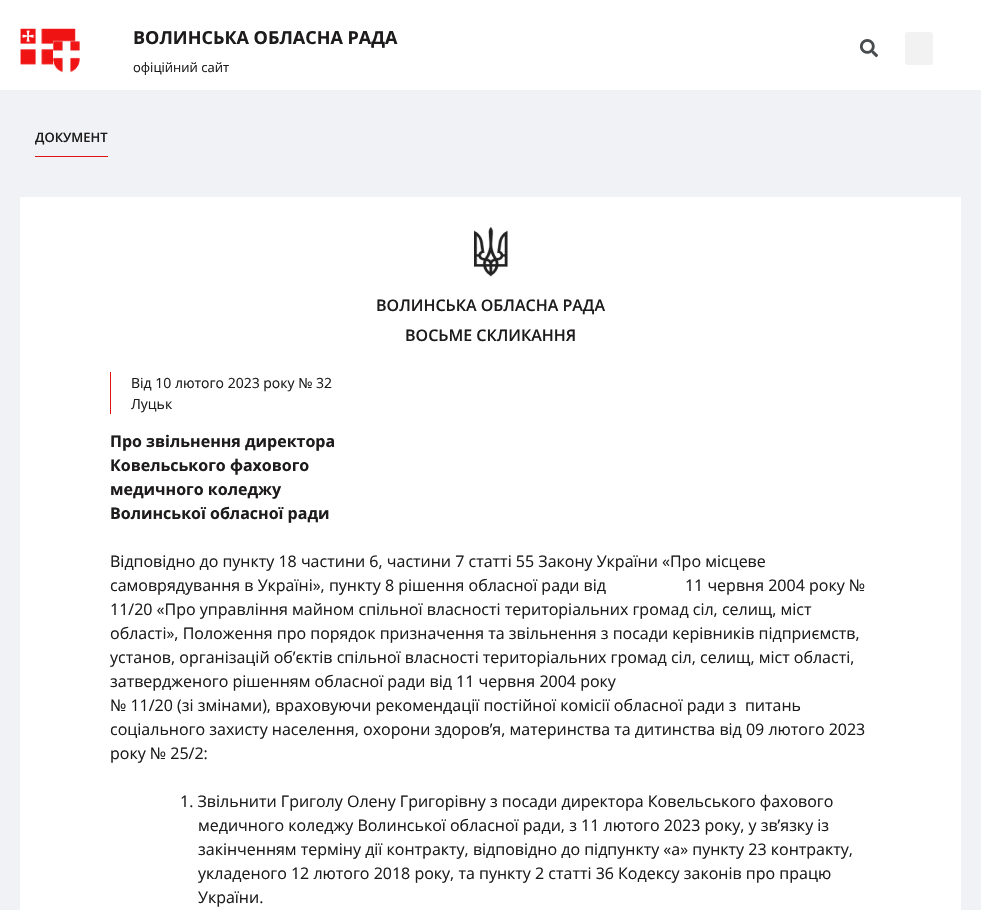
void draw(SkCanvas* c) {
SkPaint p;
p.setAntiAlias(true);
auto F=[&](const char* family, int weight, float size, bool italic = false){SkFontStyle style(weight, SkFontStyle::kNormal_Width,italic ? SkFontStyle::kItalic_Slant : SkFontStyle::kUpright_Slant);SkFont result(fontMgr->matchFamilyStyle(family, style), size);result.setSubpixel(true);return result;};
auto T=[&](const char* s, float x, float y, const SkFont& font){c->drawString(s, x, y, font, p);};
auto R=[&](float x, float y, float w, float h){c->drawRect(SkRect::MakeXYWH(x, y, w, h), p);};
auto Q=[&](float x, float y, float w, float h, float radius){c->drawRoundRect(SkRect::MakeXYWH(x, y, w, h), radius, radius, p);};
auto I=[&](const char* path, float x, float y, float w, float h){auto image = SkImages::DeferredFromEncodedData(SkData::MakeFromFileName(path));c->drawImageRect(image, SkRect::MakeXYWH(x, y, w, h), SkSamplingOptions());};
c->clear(0xfff0f2f5);
p.setColor(0xffffffff);
R(0,0,981,90);
I("1.png",20,28,60,45);
auto f1 = F("Open Sans",700,18);
p.setColor(0xff1d1b1b);
T("ВОЛИНСЬКА ОБЛАСНА РАДА",133,44,f1);
auto f2 = F("Open Sans",400,13);
T("офіційний сайт",133,72,f2);
I("2.png",859,39,19,19);
p.setColor(0xfff2f2f2);
Q(905,32,28,33,3);
p.setColor(0xffdf1313);
R(35,156,73,1);
auto f3 = F("Open Sans",600,13);
p.setColor(0xff1d1b1b);
T("ДОКУМЕНТ",35,142,f3);
p.setColor(0xffffffff);
R(20,197,941,713);
I("3.png",474,227,34,50);
auto f4 = F("Open Sans",600,16);
p.setColor(0xff1d1b1b);
T("ВОЛИНСЬКА ОБЛАСНА РАДА",376,311,f4);
T("ВОСЬМЕ СКЛИКАННЯ",405,341,f4);
p.setColor(0xffdf1313);
R(110,372,1,42);
auto f5 = F("Open Sans",400,14);
p.setColor(0xff1d1b1b);
T("Від 10 лютого 2023 року № 32",131,388,f5);
T("Луцьк",131,409,f5);
auto f6 = F("Open Sans",700,16);
T("Про звільнення директора",110,447,f6);
T("Ковельського фахового",110,471,f6);
T("медичного коледжу",110,495,f6);
T("Волинської обласної ради",110,519,f6);
auto f7 = F("Open Sans",400,16);
T("Відповідно до пункту 18 частини 6, частини 7 статті 55 Закону України «Про місцеве",110,567,f7);
T("самоврядування в Україні», пункту 8 рішення обласної ради від                   11 червня 2004 року №",110,591,f7);
T("11/20 «Про управління майном спільної власності територіальних громад сіл, селищ, міст",110,615,f7);
T("області», Положення про порядок призначення та звільнення з посади керівників підприємств,",110,639,f7);
T("установ, організацій об’єктів спільної власності територіальних громад сіл, селищ, міст області,",110,663,f7);
T("затвердженого рішенням обласної ради від 11 червня 2004 року",110,687,f7);
T("№ 11/20 (зі змінами), враховуючи рекомендації постійної комісії обласної ради з  питань",110,711,f7);
T("соціального захисту населення, охорони здоров’я, материнства та дитинства від 09 лютого 2023",110,735,f7);
T("року № 25/2:",110,759,f7);
T("1. Звільнити Григолу Олену Григорівну з посади директора Ковельського фахового",180,807,f7);
T("медичного коледжу Волинської обласної ради, з 11 лютого 2023 року, у зв’язку із",198,831,f7);
T("закінченням терміну дії контракту, відповідно до підпункту «а» пункту 23 контракту,",198,855,f7);
T("укладеного 12 лютого 2018 року, та пункту 2 статті 36 Кодексу законів про працю",198,879,f7);
T("України.",198,903,f7);
}
